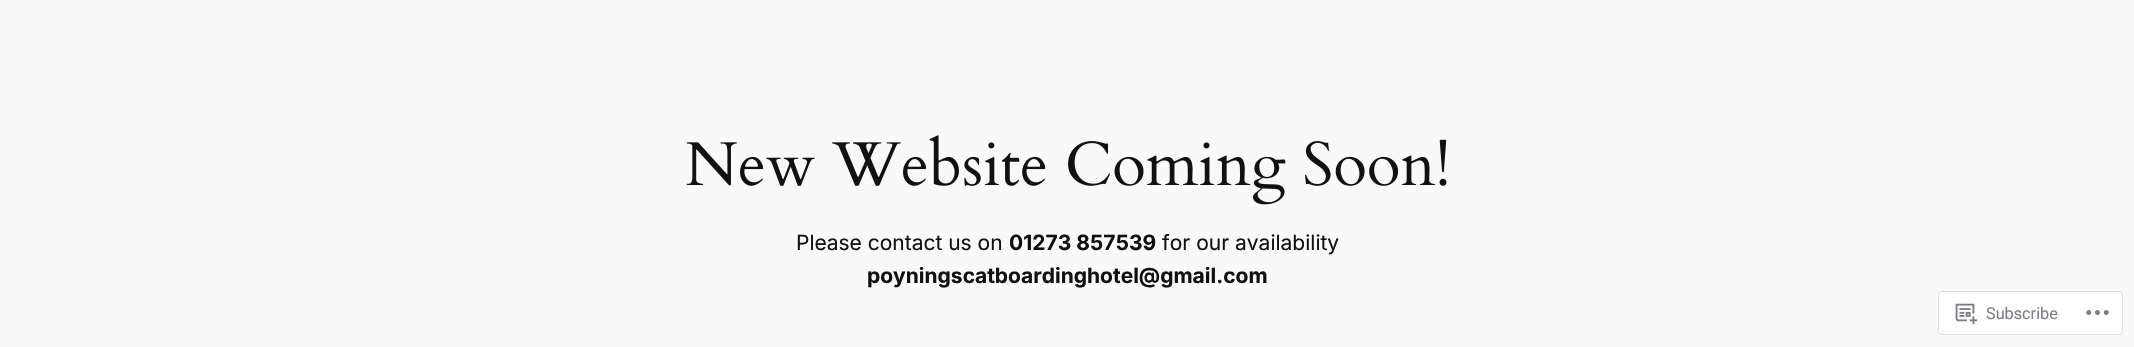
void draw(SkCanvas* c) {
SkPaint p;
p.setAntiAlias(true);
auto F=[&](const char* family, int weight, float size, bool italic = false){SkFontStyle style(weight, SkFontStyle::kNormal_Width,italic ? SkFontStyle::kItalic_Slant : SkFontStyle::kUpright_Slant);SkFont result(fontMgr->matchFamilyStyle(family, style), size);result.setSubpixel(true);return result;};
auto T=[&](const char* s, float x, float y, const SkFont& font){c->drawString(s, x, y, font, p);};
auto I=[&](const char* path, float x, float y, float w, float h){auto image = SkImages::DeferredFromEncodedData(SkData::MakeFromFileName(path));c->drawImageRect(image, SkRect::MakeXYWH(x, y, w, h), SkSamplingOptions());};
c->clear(0xfff9f9f9);
I("1.png",686,135,761,70);
auto f1 = F("Inter",400,21);
p.setColor(0xff111111);
T("Please contact us on",796,250,f1);
auto f2 = F("Inter",700,21);
T("01273 857539",1009,250,f2);
T("for our availability",1162,250,f1);
T("poyningscatboardinghotel@gmail.com",867,283,f2);
p.setColor(0xffffffff);
c->drawRoundRect(SkRect::MakeXYWH(1938.5,291.5,184,43),3.5,3.5,p);
p.setStroke(true);
p.setStrokeWidth(1);
p.setColor(0xffdddddf);
c->drawRoundRect(SkRect::MakeXYWH(1938.5,291.5,184,43),3.5,3.5,p);
I("2.png",1955,303,23,22);
auto f3 = F("Roboto",400,16.25);
p.setStroke(false);
p.setColor(0xff7b7f84);
T("Subscribe",1986,319,f3);
I("3.png",2086,310,23,5);
}
